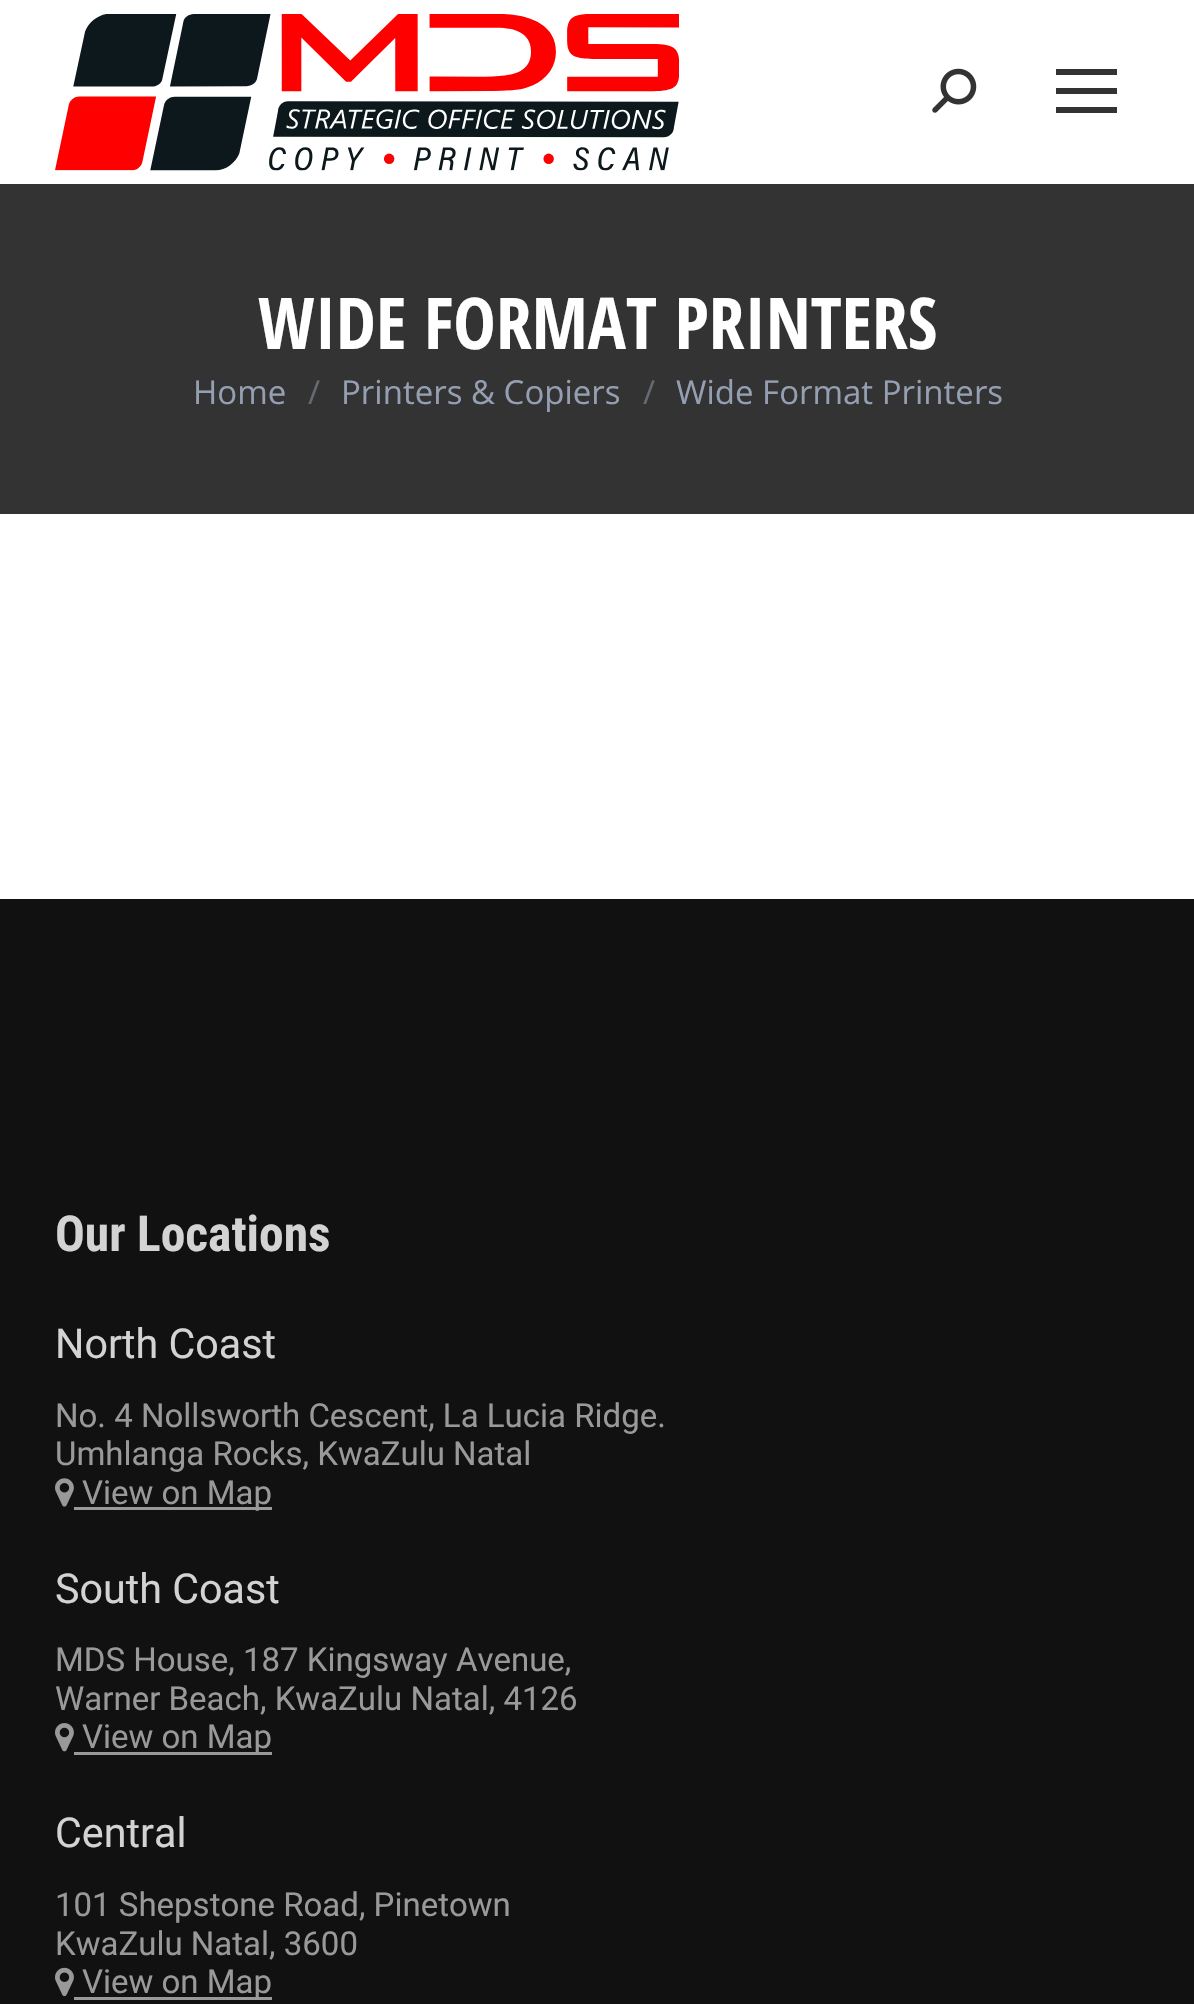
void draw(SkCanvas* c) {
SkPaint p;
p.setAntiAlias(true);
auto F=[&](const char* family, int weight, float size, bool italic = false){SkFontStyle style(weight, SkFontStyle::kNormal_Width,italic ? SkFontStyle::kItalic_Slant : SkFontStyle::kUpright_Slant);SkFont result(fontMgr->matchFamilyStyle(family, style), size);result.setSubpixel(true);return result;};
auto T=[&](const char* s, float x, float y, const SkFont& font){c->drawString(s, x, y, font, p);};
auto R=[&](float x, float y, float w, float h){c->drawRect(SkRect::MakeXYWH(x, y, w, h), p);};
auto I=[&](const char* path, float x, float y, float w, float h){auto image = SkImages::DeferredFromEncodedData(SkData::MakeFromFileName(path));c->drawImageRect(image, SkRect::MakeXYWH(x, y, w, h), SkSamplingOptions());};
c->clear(0xffffffff);
I("1.png",55,14,624,157);
I("2.png",932,68,45,45);
p.setColor(0xff333333);
R(1056,69,61,6);
R(1056,88,61,6);
R(1056,107,61,6);
R(0,184,1194,330);
auto f1 = F("Open Sans Condensed",700,71.5);
p.setColor(0xffffffff);
T("WIDE FORMAT PRINTERS",258,349,f1);
auto f2 = F("Open Sans",400,33);
p.setColor(0xff949fb2);
T("Home",193,404,f2);
p.setColor(0xff646973);
T("/",308,404,f2);
p.setColor(0xff949fb2);
T("Printers & Copiers",341,404,f2);
p.setColor(0xff646973);
T("/",643,404,f2);
p.setColor(0xff949fb2);
T("Wide Format Printers",676,404,f2);
p.setColor(0xff111111);
R(0,899,1194,1105);
auto f3 = F("Roboto Condensed",700,49.5);
p.setColor(0xffd3d3d3);
T("Our Locations",55,1251,f3);
auto f4 = F("Roboto",400,41.25);
T("North Coast",55,1358,f4);
auto f5 = F("Roboto",400,33);
p.setColor(0xff999999);
T("No. 4 Nollsworth Cescent, La Lucia Ridge.",55,1427,f5);
T("Umhlanga Rocks, KwaZulu Natal",55,1465,f5);
I("3.png",55,1478,19,29);
R(74,1507,198,3);
T("View on Map",82,1504,f5);
p.setColor(0xffd3d3d3);
T("South Coast",55,1603,f4);
p.setColor(0xff999999);
T("MDS House, 187 Kingsway Avenue,",55,1671,f5);
T("Warner Beach, KwaZulu Natal, 4126",55,1710,f5);
I("4.png",55,1723,19,29);
R(74,1752,198,3);
T("View on Map",82,1748,f5);
p.setColor(0xffd3d3d3);
T("Central",55,1847,f4);
p.setColor(0xff999999);
T("101 Shepstone Road, Pinetown",55,1916,f5);
T("KwaZulu Natal, 3600",55,1955,f5);
I("5.png",55,1967,19,30);
R(74,1997,198,3);
T("View on Map",82,1993,f5);
}
